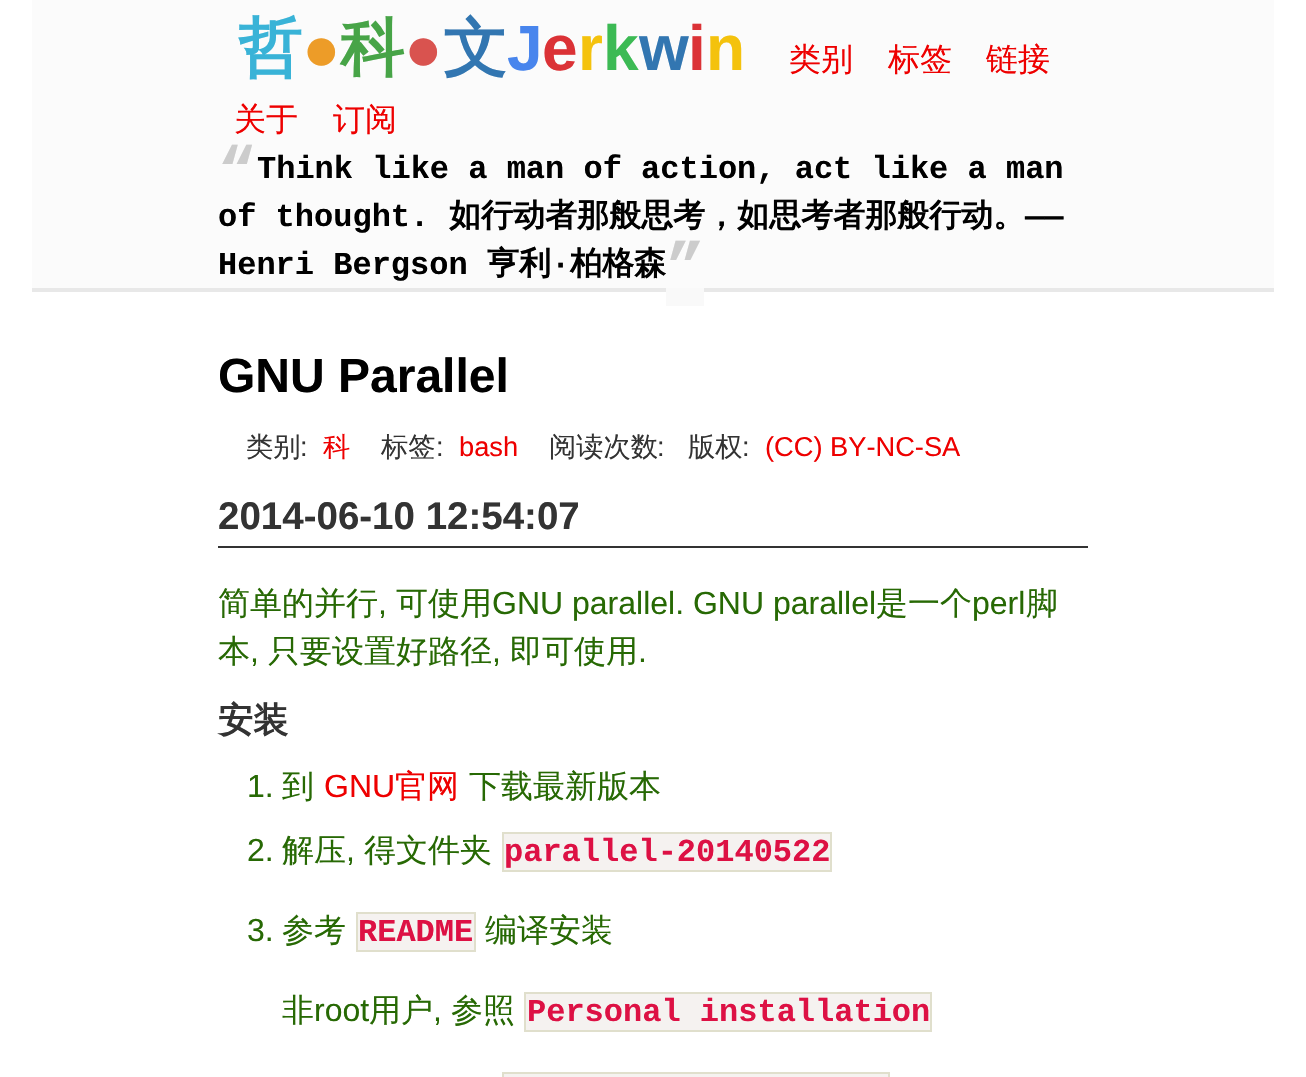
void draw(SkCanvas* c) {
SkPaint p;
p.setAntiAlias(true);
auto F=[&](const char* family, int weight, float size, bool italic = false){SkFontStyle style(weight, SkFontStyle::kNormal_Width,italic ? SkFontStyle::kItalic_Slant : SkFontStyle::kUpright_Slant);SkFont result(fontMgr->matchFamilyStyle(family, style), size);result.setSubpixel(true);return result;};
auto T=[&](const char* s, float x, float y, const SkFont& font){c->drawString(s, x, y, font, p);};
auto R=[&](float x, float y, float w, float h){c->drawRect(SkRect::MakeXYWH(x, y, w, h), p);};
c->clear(0xffffffff);
p.setColor(0xfffbfbfb);
R(32,0,1242,288);
p.setColor(0xffe8e8e8);
R(32,288,1242,4);
auto f1 = F("WenQuanYi Zen Hei",700,64);
p.setColor(0xff39b3d7);
T("哲",238,70,f1);
auto f2 = F("Liberation Sans",700,64);
p.setColor(0xffed9c28);
T("●",302,70,f2);
p.setColor(0xff47a447);
T("科",340,70,f1);
p.setColor(0xffd9534f);
T("●",404,70,f2);
p.setColor(0xff3276b1);
T("文",443,70,f1);
p.setColor(0xff4885ed);
T("J",507,70,f2);
p.setColor(0xffdb3236);
T("e",542,70,f2);
p.setColor(0xfff4c20d);
T("r",578,70,f2);
p.setColor(0xff3cba54);
T("k",603,70,f2);
p.setColor(0xff3276b1);
T("w",639,70,f2);
p.setColor(0xffdb3236);
T("i",688,70,f2);
p.setColor(0xfff4c20d);
T("n",706,70,f2);
auto f3 = F("WenQuanYi Zen Hei",500,32);
p.setColor(0xffee0000);
T("类别",789,70,f3);
T("标签",888,70,f3);
T("链接",986,70,f3);
T("关于",234,130,f3);
T("订阅",333,130,f3);
auto f4 = F("Liberation Mono",700,64);
p.setColor(0xffcccccc);
T("“",218,191,f4);
auto f5 = F("Liberation Mono",700,32);
p.setColor(0xff000000);
T("Think like a man of action, act like a man",257,178,f5);
T("of thought.",218,226,f5);
auto f6 = F("WenQuanYi Zen Hei",700,32);
T("如行动者那般思考，如思考者那般行动。",449,226,f6);
T("——",1025,226,f5);
T("Henri Bergson",218,274,f5);
T("亨利",487,274,f6);
T("·",551,274,f5);
T("柏格森",570,274,f6);
p.setColor(0xfff9f9f9);
R(666,288,38,18);
p.setColor(0xffcccccc);
T("”",666,287,f4);
auto f7 = F("Liberation Sans",700,48);
p.setColor(0xff000000);
T("GNU Parallel",218,392,f7);
auto f8 = F("WenQuanYi Zen Hei",500,27.25);
p.setColor(0xff333333);
T("类别",246,456,f8);
auto f9 = F("Liberation Sans",400,27.25);
T(":",300,456,f9);
p.setColor(0xffee0000);
T("科",323,456,f8);
p.setColor(0xff333333);
T("标签",381,456,f8);
T(":",436,456,f9);
p.setColor(0xffee0000);
T("bash",459,456,f9);
p.setColor(0xff333333);
T("阅读次数",549,456,f8);
T(":",657,456,f9);
T("版权",688,456,f8);
T(":",742,456,f9);
p.setColor(0xffee0000);
T("(CC) BY-NC-SA",765,456,f9);
p.setColor(0xff333333);
R(218,546,870,2);
auto f10 = F("Liberation Sans",700,38.5);
T("2014-06-10 12:54:07",218,529,f10);
p.setColor(0xff276904);
T("简单的并行",218,614,f3);
auto f11 = F("Liberation Sans",400,32);
T(",",378,614,f11);
T("可使用",396,614,f3);
T("GNU parallel. GNU parallel",492,614,f11);
T("是一个",876,614,f3);
T("perl",972,614,f11);
T("脚",1026,614,f3);
T("本",218,662,f3);
T(",",250,662,f11);
T("只要设置好路径",268,662,f3);
T(",",492,662,f11);
T("即可使用",510,662,f3);
T(".",638,662,f11);
auto f12 = F("WenQuanYi Zen Hei",700,35);
p.setColor(0xff333333);
T("安装",218,732,f12);
p.setColor(0xff276904);
T("1.",247,797,f11);
T("到",282,797,f3);
p.setColor(0xffee0000);
T("GNU",324,797,f11);
T("官网",395,797,f3);
p.setColor(0xff276904);
T("下载最新版本",469,797,f3);
T("2.",247,861,f11);
T("解压",282,861,f3);
T(",",346,861,f11);
T("得文件夹",364,861,f3);
p.setColor(0xfff5f2f0);
c->drawRect(SkRect::MakeXYWH(503,833,328,38),p);
p.setStroke(true);
p.setStrokeWidth(2);
p.setColor(0xffe0dfcc);
c->drawRect(SkRect::MakeXYWH(503,833,328,38),p);
p.setStroke(false);
p.setColor(0xffdd1144);
T("parallel-20140522",504,861,f5);
p.setColor(0xff276904);
T("3.",247,941,f11);
T("参考",282,941,f3);
p.setColor(0xfff5f2f0);
c->drawRect(SkRect::MakeXYWH(357,913,118,38),p);
p.setStroke(true);
p.setColor(0xffe0dfcc);
c->drawRect(SkRect::MakeXYWH(357,913,118,38),p);
p.setStroke(false);
p.setColor(0xffdd1144);
T("README",358,941,f5);
p.setColor(0xff276904);
T("编译安装",485,941,f3);
T("非",282,1021,f3);
T("root",314,1021,f11);
T("用户",369,1021,f3);
T(",",433,1021,f11);
T("参照",451,1021,f3);
p.setColor(0xfff5f2f0);
c->drawRect(SkRect::MakeXYWH(525,993,406,38),p);
p.setStroke(true);
p.setColor(0xffe0dfcc);
c->drawRect(SkRect::MakeXYWH(525,993,406,38),p);
p.setStroke(false);
p.setColor(0xffdd1144);
T("Personal installation",527,1021,f5);
p.setColor(0xfff5f2f0);
c->drawRect(SkRect::MakeXYWH(503,1073,386,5),p);
p.setStroke(true);
p.setColor(0xffe0dfcc);
c->drawRect(SkRect::MakeXYWH(503,1073,386,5),p);
}
